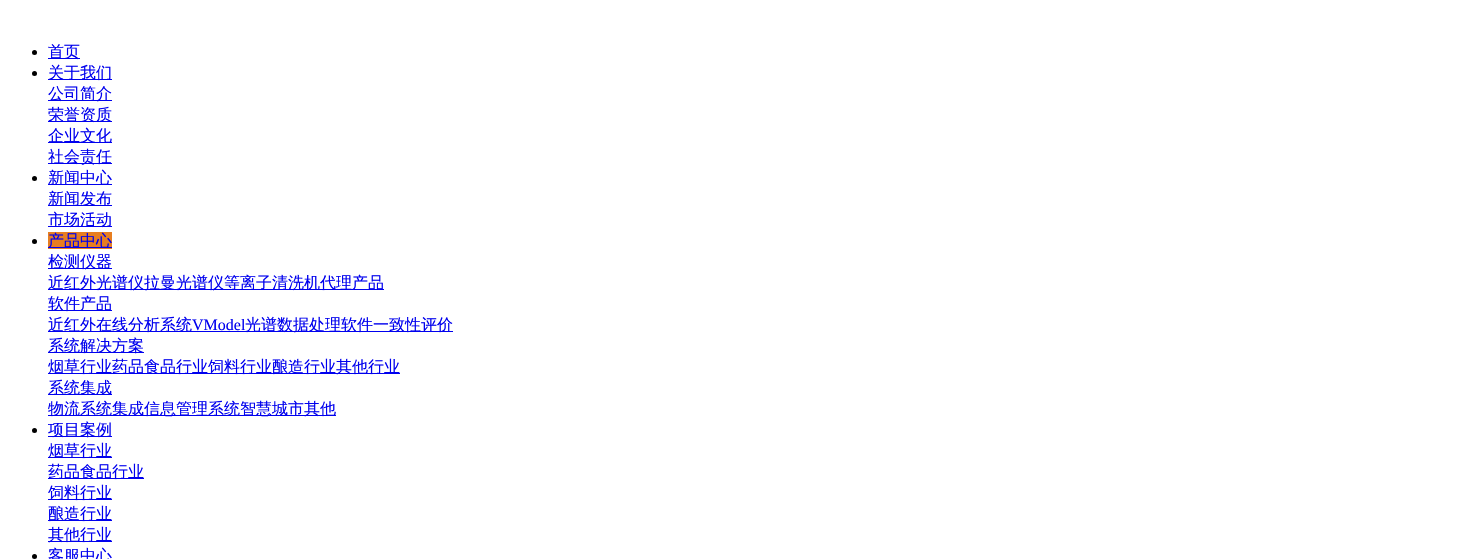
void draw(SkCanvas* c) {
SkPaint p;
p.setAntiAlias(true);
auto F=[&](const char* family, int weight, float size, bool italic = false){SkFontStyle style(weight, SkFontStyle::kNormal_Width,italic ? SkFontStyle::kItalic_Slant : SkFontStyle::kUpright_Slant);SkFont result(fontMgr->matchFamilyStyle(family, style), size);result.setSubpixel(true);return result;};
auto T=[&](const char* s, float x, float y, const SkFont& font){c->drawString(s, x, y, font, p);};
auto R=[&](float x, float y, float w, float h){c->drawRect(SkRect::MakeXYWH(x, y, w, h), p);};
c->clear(0xffffffff);
p.setColor(0xff000000);
c->drawCircle(34.5,52.5,2.5,p);
p.setColor(0xff0000ee);
R(48,58,32,1);
auto f1 = F("WenQuanYi Zen Hei",500,16);
T("首页",48,57,f1);
p.setColor(0xff000000);
c->drawCircle(34.5,73.5,2.5,p);
p.setColor(0xff0000ee);
R(48,79,64,1);
T("关于我们",48,78,f1);
R(48,100,64,1);
T("公司简介",48,99,f1);
R(48,121,64,1);
T("荣誉资质",48,120,f1);
R(48,142,64,1);
T("企业文化",48,141,f1);
R(48,163,64,1);
T("社会责任",48,162,f1);
p.setColor(0xff000000);
c->drawCircle(34.5,178.5,2.5,p);
p.setColor(0xff0000ee);
R(48,184,64,1);
T("新闻中心",48,183,f1);
R(48,205,64,1);
T("新闻发布",48,204,f1);
R(48,226,64,1);
T("市场活动",48,225,f1);
p.setColor(0xff000000);
c->drawCircle(34.5,241.5,2.5,p);
p.setColor(0xffe77e21);
R(48,232,64,17);
p.setColor(0xff0000ee);
R(48,247,64,1);
T("产品中心",48,246,f1);
R(48,268,64,1);
T("检测仪器",48,267,f1);
R(48,289,336,1);
T("近红外光谱仪拉曼光谱仪等离子清洗机代理产品",48,288,f1);
R(48,310,64,1);
T("软件产品",48,309,f1);
R(48,331,405,1);
T("近红外在线分析系统",48,330,f1);
auto f2 = F("Liberation Serif",400,16);
T("VModel",192,330,f2);
T("光谱数据处理软件一致性评价",245,330,f1);
R(48,352,96,1);
T("系统解决方案",48,351,f1);
R(48,373,352,1);
T("烟草行业药品食品行业饲料行业酿造行业其他行业",48,372,f1);
R(48,394,64,1);
T("系统集成",48,393,f1);
R(48,415,288,1);
T("物流系统集成信息管理系统智慧城市其他",48,414,f1);
p.setColor(0xff000000);
c->drawCircle(34.5,430.5,2.5,p);
p.setColor(0xff0000ee);
R(48,436,64,1);
T("项目案例",48,435,f1);
R(48,457,64,1);
T("烟草行业",48,456,f1);
R(48,478,96,1);
T("药品食品行业",48,477,f1);
R(48,499,64,1);
T("饲料行业",48,498,f1);
R(48,520,64,1);
T("酿造行业",48,519,f1);
R(48,541,64,1);
T("其他行业",48,540,f1);
p.setColor(0xff000000);
c->drawCircle(34.5,556.5,2.5,p);
p.setColor(0xff0000ee);
T("客服中心",48,561,f1);
}
